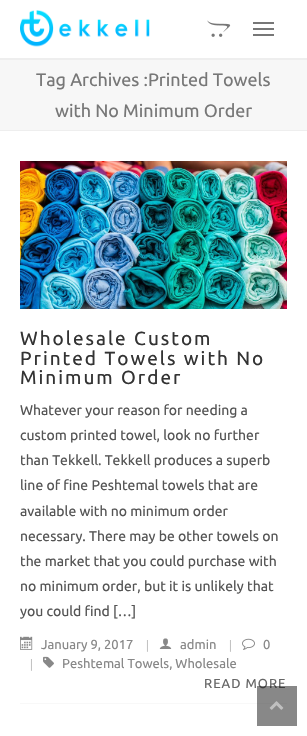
void draw(SkCanvas* c) {
SkPaint p;
p.setAntiAlias(true);
auto F=[&](const char* family, int weight, float size, bool italic = false){SkFontStyle style(weight, SkFontStyle::kNormal_Width,italic ? SkFontStyle::kItalic_Slant : SkFontStyle::kUpright_Slant);SkFont result(fontMgr->matchFamilyStyle(family, style), size);result.setSubpixel(true);return result;};
auto T=[&](const char* s, float x, float y, const SkFont& font){c->drawString(s, x, y, font, p);};
auto L=[&](const char* s, float x, float y, const SkFont& font, const SkPaint& ink, float letter, float word){std::vector<SkGlyphID> glyphs(font.countText(s, strlen(s), SkTextEncoding::kUTF8));std::vector<float> xs(glyphs.size());font.textToGlyphs(s, strlen(s), SkTextEncoding::kUTF8, glyphs);font.getXPos(glyphs, xs, x);float extra = 0;for (size_t i = 0; i < glyphs.size(); i++) {xs[i] += extra;extra += letter + word * (glyphs[i] == font.unicharToGlyph(' '));}c->drawTextBlob(SkTextBlob::MakeFromPosHGlyphs(glyphs, xs, y, font), 0, 0, ink);};
auto R=[&](float x, float y, float w, float h){c->drawRect(SkRect::MakeXYWH(x, y, w, h), p);};
auto I=[&](const char* path, float x, float y, float w, float h){auto image = SkImages::DeferredFromEncodedData(SkData::MakeFromFileName(path));c->drawImageRect(image, SkRect::MakeXYWH(x, y, w, h), SkSamplingOptions());};
c->clear(0xffffffff);
I("1.png",20,10,130,37);
I("2.png",207,20,24,17);
p.setColor(0xff777777);
R(253,22,21,2);
R(253,28,21,2);
R(253,34,21,2);
p.setColor(0xfff7f7f7);
R(0,60,307,70);
p.setColor(0xffeeeeee);
R(0,58,307,2);
R(0,130,307,1);
auto f1 = F("Ubuntu",400,18);
p.setColor(0xff777777);
T("Tag Archives :Printed Towels",36,86,f1);
T("with No Minimum Order",55,117,f1);
p.setColor(0xfff8f8f8);
R(20,703,267,1);
I("3.png",20,161,267,148);
auto f2 = F("Ubuntu",400,19);
p.setColor(0xff333333);
L("Wholesale Custom",20,345,f2,p,2,0);
L("Printed Towels with No",20,365,f2,p,2,0);
L("Minimum Order",20,384,f2,p,2,0);
auto f3 = F("Ubuntu",400,14);
p.setColor(0xff555555);
T("Whatever your reason for needing a",20,415,f3);
T("custom printed towel, look no further",20,440,f3);
T("than Tekkell. Tekkell produces a superb",20,465,f3);
T("line of fine Peshtemal towels that are",20,490,f3);
T("available with no minimum order",20,516,f3);
T("necessary. There may be other towels on",20,541,f3);
T("the market that you could purchase with",20,566,f3);
T("no minimum order, but it is unlikely that",20,591,f3);
T("you could find […]",20,616,f3);
I("4.png",20,636,13,14);
auto f4 = F("Ubuntu",400,13);
p.setColor(0xff888888);
T("January 9, 2017",41,649,f4);
auto f5 = F("Liberation Serif",400,13);
p.setColor(0xffaaaaaa);
T("|",146,649,f5);
I("5.png",159,638,13,11);
p.setColor(0xff888888);
T("admin",180,649,f4);
p.setColor(0xffaaaaaa);
T("|",229,649,f5);
I("6.png",242,638,13,12);
p.setColor(0xff888888);
T("0",263,649,f4);
p.setColor(0xffaaaaaa);
T("|",30,668,f5);
I("7.png",43,656,11,12);
p.setColor(0xff888888);
T("Peshtemal Towels, Wholesale",62,668,f4);
p.setColor(0xff666666);
L("READ MORE",204,688,f4,p,1,0);
p.setColor(0x80121212);
R(257,686,40,40);
I("8.png",269,701,15,9);
}
